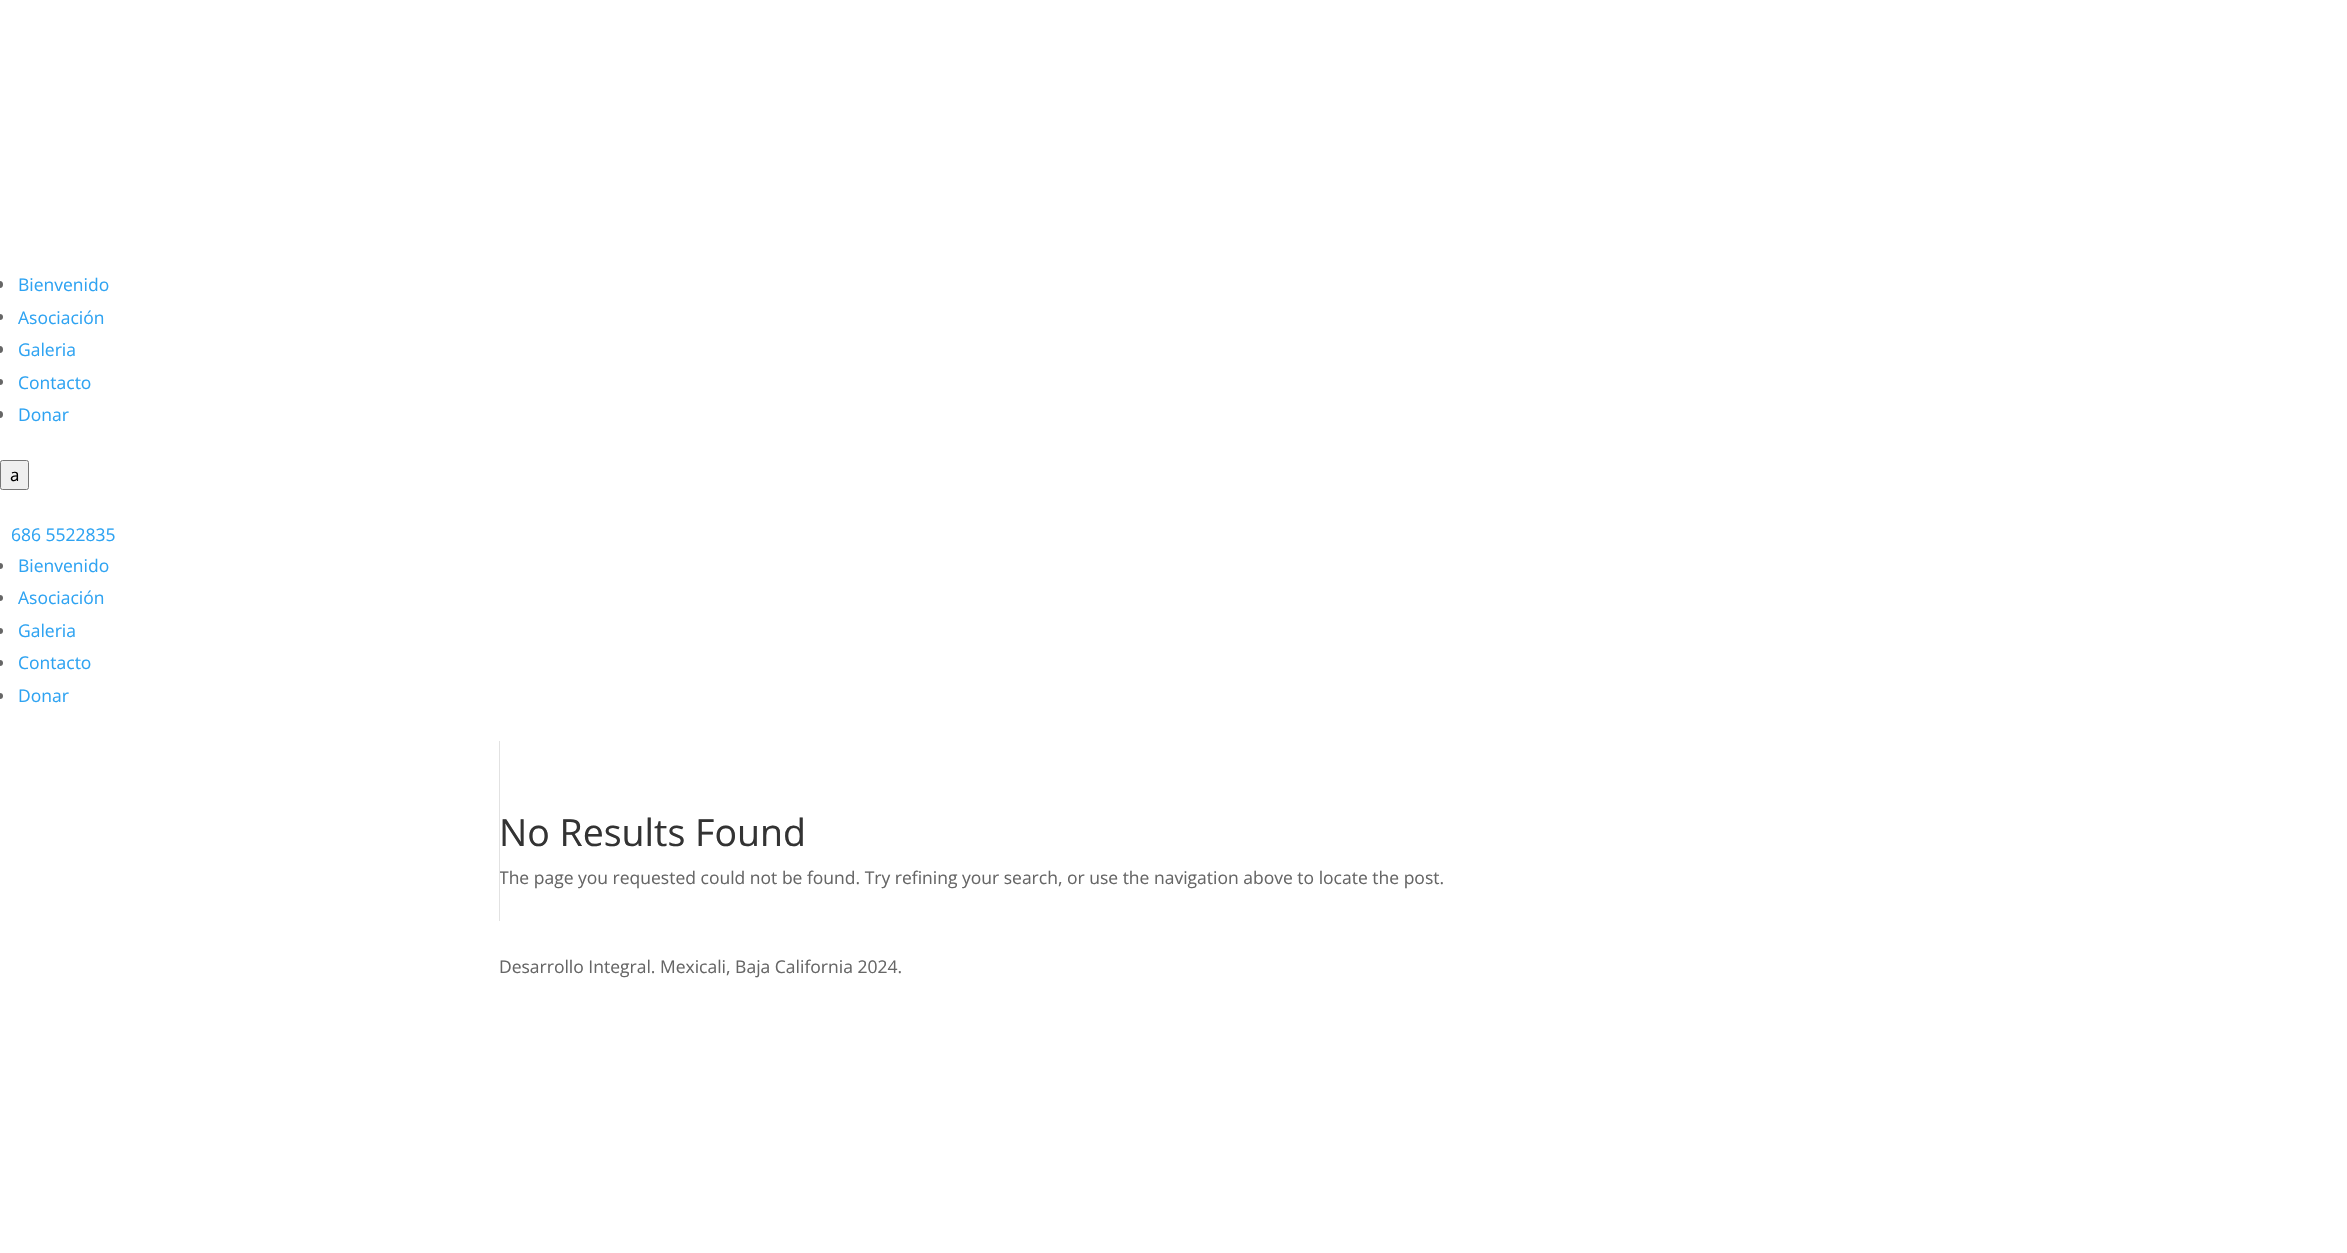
void draw(SkCanvas* c) {
SkPaint p;
p.setAntiAlias(true);
auto F=[&](const char* family, int weight, float size, bool italic = false){SkFontStyle style(weight, SkFontStyle::kNormal_Width,italic ? SkFontStyle::kItalic_Slant : SkFontStyle::kUpright_Slant);SkFont result(fontMgr->matchFamilyStyle(family, style), size);result.setSubpixel(true);return result;};
auto T=[&](const char* s, float x, float y, const SkFont& font){c->drawString(s, x, y, font, p);};
auto R=[&](float x, float y, float w, float h){c->drawRect(SkRect::MakeXYWH(x, y, w, h), p);};
c->clear(0xffffffff);
p.setColor(0xff666666);
c->drawCircle(-.5,284.5,3.5,p);
auto f1 = F("Open Sans",400,17.5);
p.setColor(0xff2ea3f2);
T("Bienvenido",18,291,f1);
p.setColor(0xff666666);
c->drawCircle(0,317,3,p);
p.setColor(0xff2ea3f2);
T("Asociación",18,324,f1);
p.setColor(0xff666666);
c->drawCircle(-.5,349.5,3.5,p);
p.setColor(0xff2ea3f2);
T("Galeria",18,356,f1);
p.setColor(0xff666666);
c->drawCircle(0,382,3,p);
p.setColor(0xff2ea3f2);
T("Contacto",18,389,f1);
p.setColor(0xff666666);
c->drawCircle(-.5,414.5,3.5,p);
p.setColor(0xff2ea3f2);
T("Donar",18,421,f1);
p.setColor(0xffefefef);
c->drawRoundRect(SkRect::MakeXYWH(.5,460.5,28,29),2,2,p);
p.setStroke(true);
p.setStrokeWidth(1);
p.setColor(0xff767676);
c->drawRoundRect(SkRect::MakeXYWH(.5,460.5,28,29),2,2,p);
auto f2 = F("Open Sans",400,17);
p.setStroke(false);
p.setColor(0xff000000);
T("a",10,481,f2);
p.setColor(0xff2ea3f2);
T("686 5522835",11,541,f1);
p.setColor(0xff666666);
c->drawCircle(0,566,3,p);
p.setColor(0xff2ea3f2);
T("Bienvenido",18,572,f1);
p.setColor(0xff666666);
c->drawCircle(0,598,3,p);
p.setColor(0xff2ea3f2);
T("Asociación",18,604,f1);
p.setColor(0xff666666);
c->drawCircle(0,631,3,p);
p.setColor(0xff2ea3f2);
T("Galeria",18,637,f1);
p.setColor(0xff666666);
c->drawCircle(0,663,3,p);
p.setColor(0xff2ea3f2);
T("Contacto",18,669,f1);
p.setColor(0xff666666);
c->drawCircle(0,696,3,p);
p.setColor(0xff2ea3f2);
T("Donar",18,702,f1);
p.setColor(0xff666666);
T("The page you requested could not be found. Try refining your search, or use the navigation above to locate the post.",499,884,f1);
p.setColor(0xffe2e2e2);
R(499,741,1,180);
auto f3 = F("Open Sans",400,37.5);
p.setColor(0xff333333);
T("No Results Found",499,846,f3);
p.setColor(0xff666666);
T("Desarrollo Integral. Mexicali, Baja California 2024.",499,973,f1);
}
